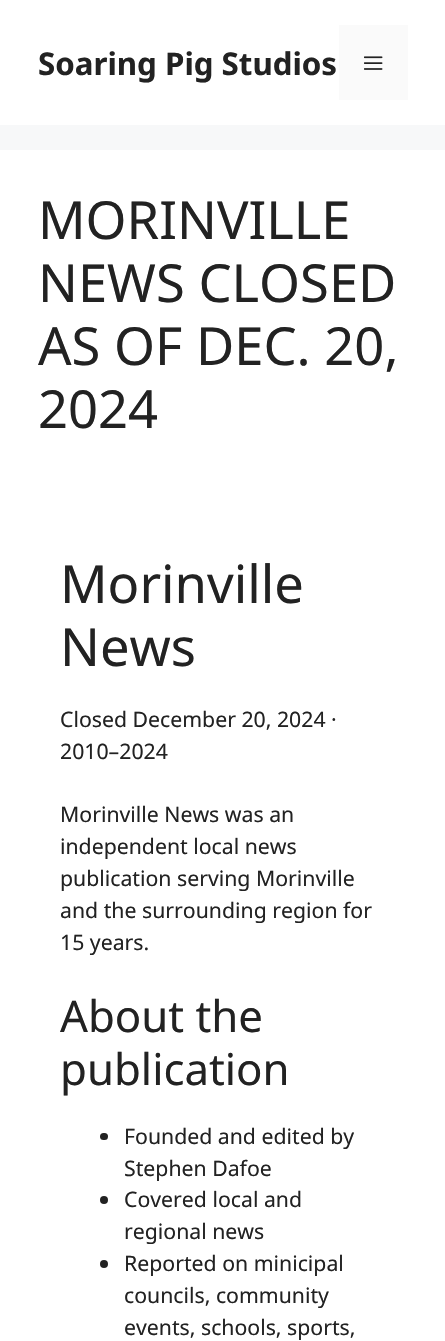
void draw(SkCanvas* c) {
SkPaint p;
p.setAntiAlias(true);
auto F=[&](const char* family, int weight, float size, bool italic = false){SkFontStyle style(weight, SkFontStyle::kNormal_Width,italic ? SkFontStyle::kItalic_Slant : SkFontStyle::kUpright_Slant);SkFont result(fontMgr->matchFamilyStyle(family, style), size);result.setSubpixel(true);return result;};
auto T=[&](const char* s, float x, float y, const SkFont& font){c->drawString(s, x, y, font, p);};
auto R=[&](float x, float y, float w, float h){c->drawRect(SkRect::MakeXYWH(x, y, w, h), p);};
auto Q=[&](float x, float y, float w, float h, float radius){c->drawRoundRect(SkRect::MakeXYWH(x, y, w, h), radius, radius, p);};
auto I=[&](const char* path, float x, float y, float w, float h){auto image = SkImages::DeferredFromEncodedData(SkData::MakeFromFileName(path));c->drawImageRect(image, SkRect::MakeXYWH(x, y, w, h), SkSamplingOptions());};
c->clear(0xfff7f8f9);
p.setColor(0xffffffff);
R(0,0,445,125);
auto f1 = F("Noto Sans",700,31.25);
p.setColor(0xff222222);
T("Soaring Pig Studios",38,75,f1);
p.setColor(0xfffafafa);
R(339,25,69,75);
I("1.png",364,56,19,14);
p.setColor(0xffffffff);
R(0,150,445,1191);
auto f2 = F("Noto Sans",400,52.5);
p.setColor(0xff222222);
T("MORINVILLE",38,239,f2);
T("NEWS CLOSED",38,302,f2);
T("AS OF DEC. 20,",38,365,f2);
T("2024",38,428,f2);
T("Morinville",60,603,f2);
T("News",60,666,f2);
auto f3 = F("Noto Sans",400,21.25);
T("Closed December 20, 2024 ·",60,727,f3);
T("2010–2024",60,759,f3);
T("Morinville News was an",60,822,f3);
T("independent local news",60,854,f3);
T("publication serving Morinville",60,886,f3);
T("and the surrounding region for",60,918,f3);
T("15 years.",60,950,f3);
auto f4 = F("Noto Sans",400,43.75);
T("About the",60,1032,f4);
T("publication",60,1085,f4);
Q(100,1133,8,7,3.5);
T("Founded and edited by",124,1144,f3);
T("Stephen Dafoe",124,1176,f3);
c->drawCircle(104,1200,4,p);
T("Covered local and",124,1207,f3);
T("regional news",124,1239,f3);
c->drawCircle(104,1264,4,p);
T("Reported on minicipal",124,1271,f3);
T("councils, community",124,1303,f3);
T("events, schools, sports,",124,1335,f3);
}
